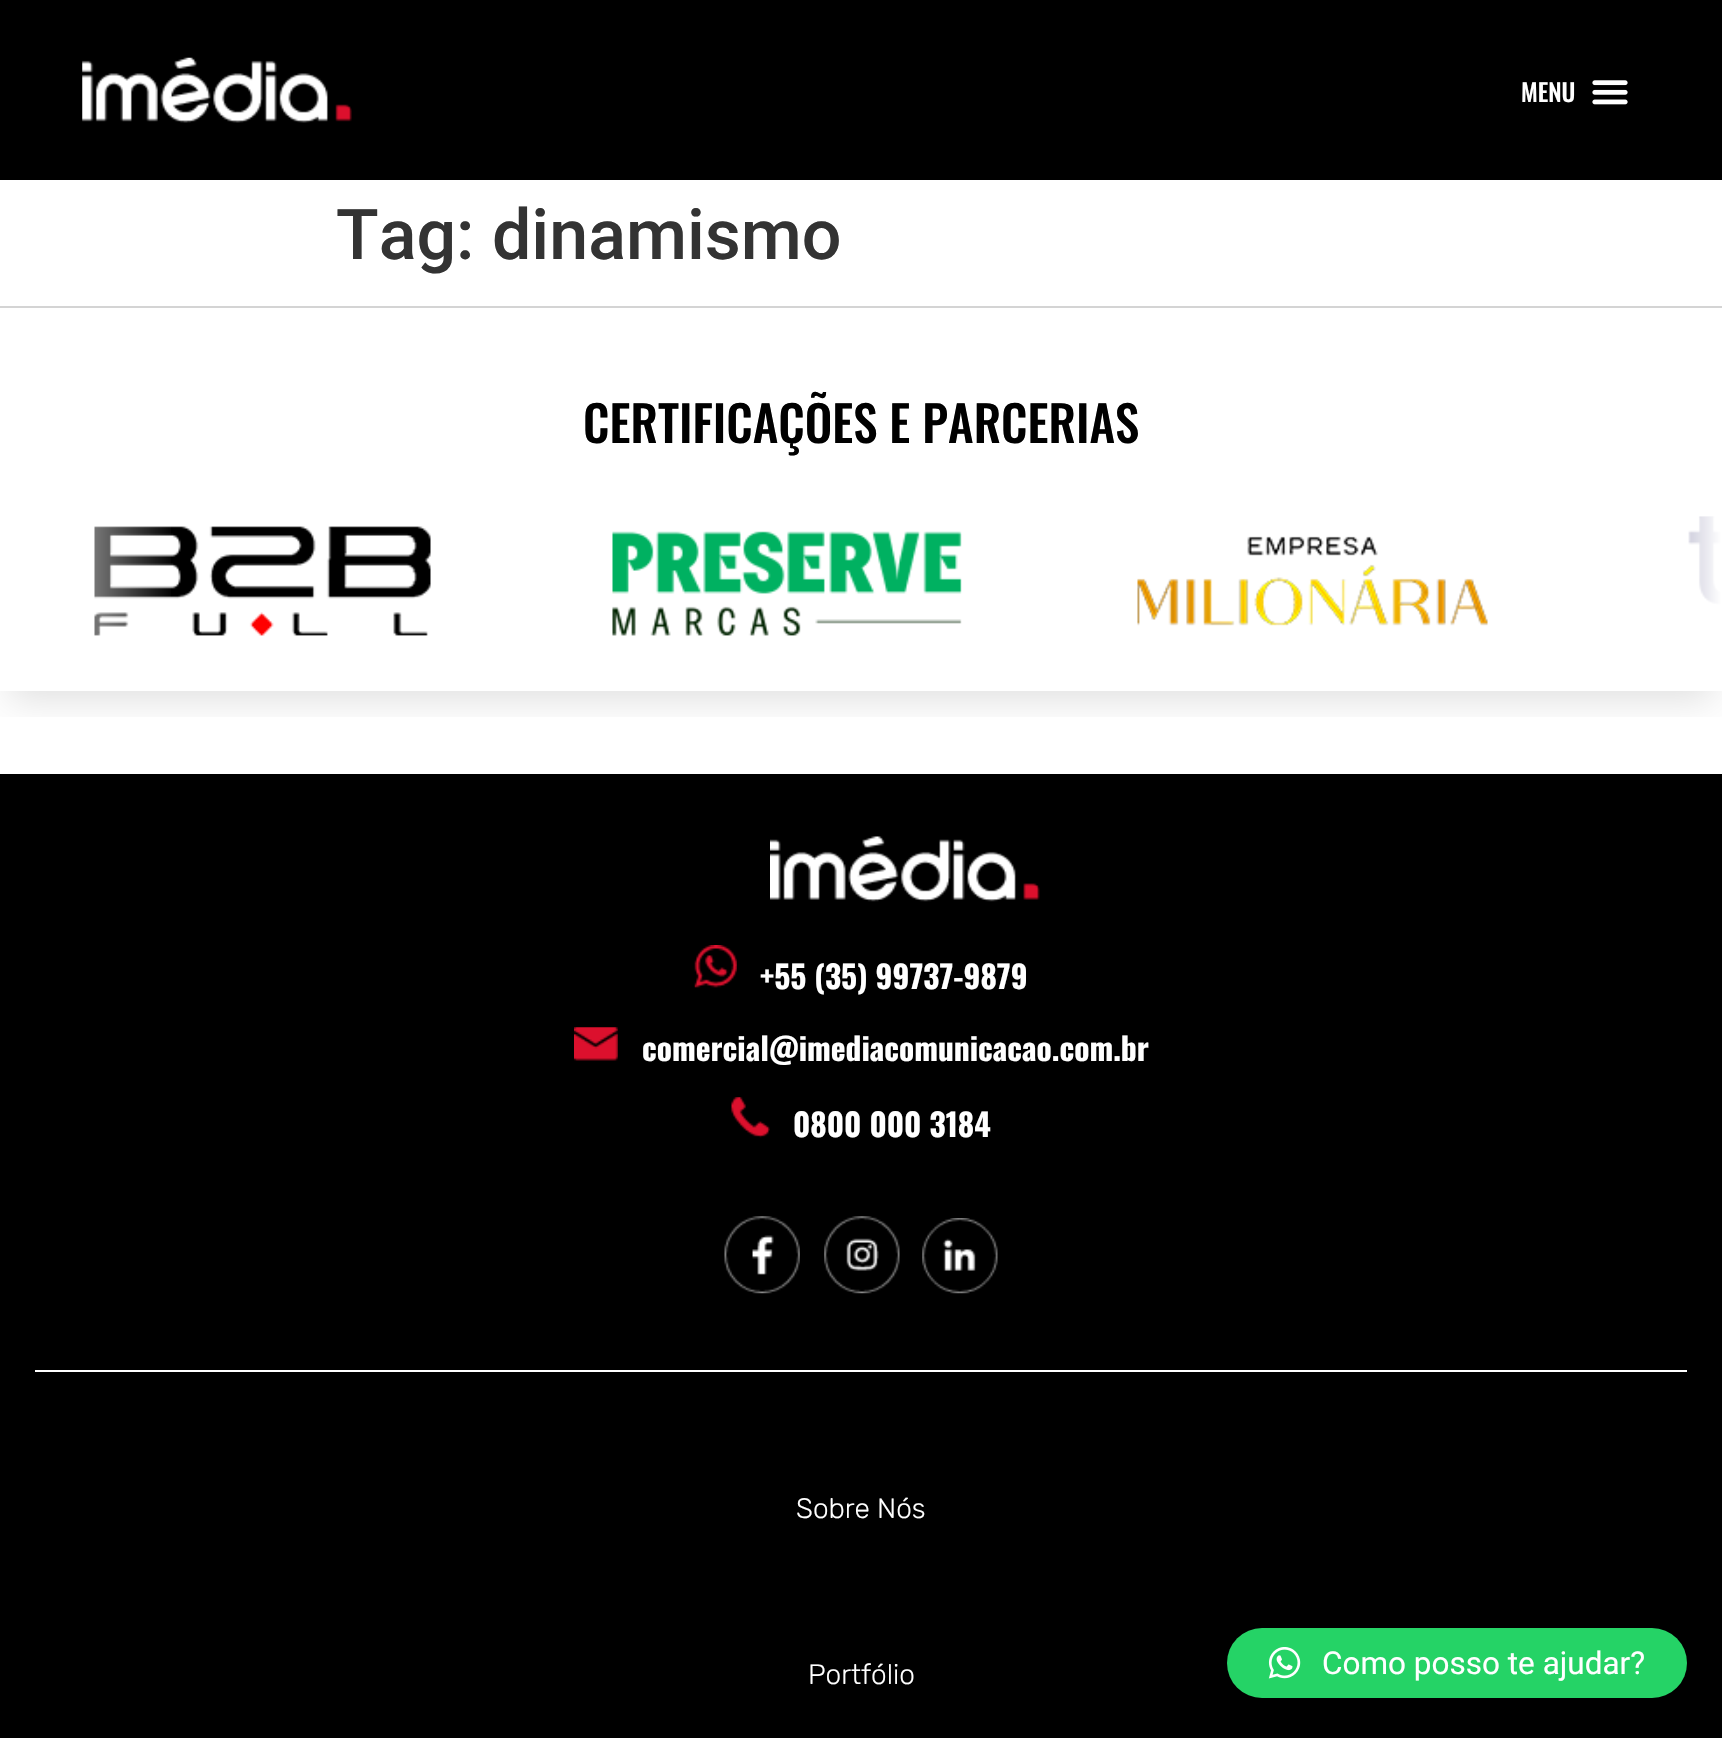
void draw(SkCanvas* c) {
SkPaint p;
p.setAntiAlias(true);
auto F=[&](const char* family, int weight, float size, bool italic = false){SkFontStyle style(weight, SkFontStyle::kNormal_Width,italic ? SkFontStyle::kItalic_Slant : SkFontStyle::kUpright_Slant);SkFont result(fontMgr->matchFamilyStyle(family, style), size);result.setSubpixel(true);return result;};
auto T=[&](const char* s, float x, float y, const SkFont& font){c->drawString(s, x, y, font, p);};
auto R=[&](float x, float y, float w, float h){c->drawRect(SkRect::MakeXYWH(x, y, w, h), p);};
auto Q=[&](float x, float y, float w, float h, float radius){c->drawRoundRect(SkRect::MakeXYWH(x, y, w, h), radius, radius, p);};
auto I=[&](const char* path, float x, float y, float w, float h){auto image = SkImages::DeferredFromEncodedData(SkData::MakeFromFileName(path));c->drawImageRect(image, SkRect::MakeXYWH(x, y, w, h), SkSamplingOptions());};
c->clear(0xffffffff);
p.setColor(0xff000000);
R(0,0,1722,180);
I("1.png",82,57,270,66);
auto f1 = F("Oswald",500,24.5);
p.setColor(0xffffffff);
T("MENU",1521,102,f1);
I("2.png",1592,80,36,25);
auto f2 = F("Roboto",500,70);
p.setColor(0xff333333);
T("Tag: dinamismo",336,259,f2);
p.setColor(0xffd4d4d4);
R(0,306,1722,2);
auto f3 = F("Oswald",500,49);
p.setColor(0xff000000);
T("CERTIFICAÇÕES E PARCERIAS",583,443,f3);
c->save();
c->clipRect(SkRect::MakeXYWH(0,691,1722,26));
p.setColor(0x1f000000);
p.setMaskFilter(SkMaskFilter::MakeBlur(kNormal_SkBlurStyle, 17.5));
c->drawRect(SkRect::MakeXYWH(9,543,1704,157),p);
p.setMaskFilter(nullptr);
c->restore();
I("3.png",94,526,337,110);
I("4.png",612,531,350,105);
I("5.png",1137,536,351,90);
I("6.png",1688,516,33,90);
{
const SkColor colors[] = {0xffffffff,0x00ffffff};
const float stops[] = {0,1};
const SkPoint ends[] = {{0,604}, {175,604}};
p.setShader(SkGradientShader::MakeLinear(ends, colors, stops, 2, SkTileMode::kClamp));
p.setAlpha(255);
}
R(94,526,77,110);
{
const SkColor colors[] = {0xffffffff,0x00ffffff};
const float stops[] = {0,1};
const SkPoint ends[] = {{1722,604}, {1547,604}};
p.setShader(SkGradientShader::MakeLinear(ends, colors, stops, 2, SkTileMode::kClamp));
p.setAlpha(255);
}
R(1688,516,33,90);
p.setShader(nullptr);
p.setColor(0xff000000);
R(0,774,1722,964);
I("7.png",770,836,270,66);
I("8.png",694,945,43,43);
auto f4 = F("Oswald",700,31.5);
p.setColor(0xffffffff);
T("+55 (35) 99737-9879",760,989,f4);
I("9.png",574,1027,44,34);
T("comercial@imediacomunicacao.com.br",642,1061,f4);
I("10.png",731,1097,39,41);
T("0800 000 3184",793,1137,f4);
I("11.png",724,1216,76,78);
I("12.png",824,1216,76,78);
I("13.png",922,1218,76,76);
R(35,1370,1652,2);
auto f5 = F("Rubik",300,28);
T("Sobre Nós",796,1518,f5);
T("Portfólio",808,1684,f5);
p.setColor(0xff25d366);
Q(1227,1628,460,70,35);
I("14.png",1268,1647,33,32);
auto f6 = F("Roboto",400,31.5);
p.setColor(0xffffffff);
T("Como posso te ajudar?",1322,1674,f6);
}
